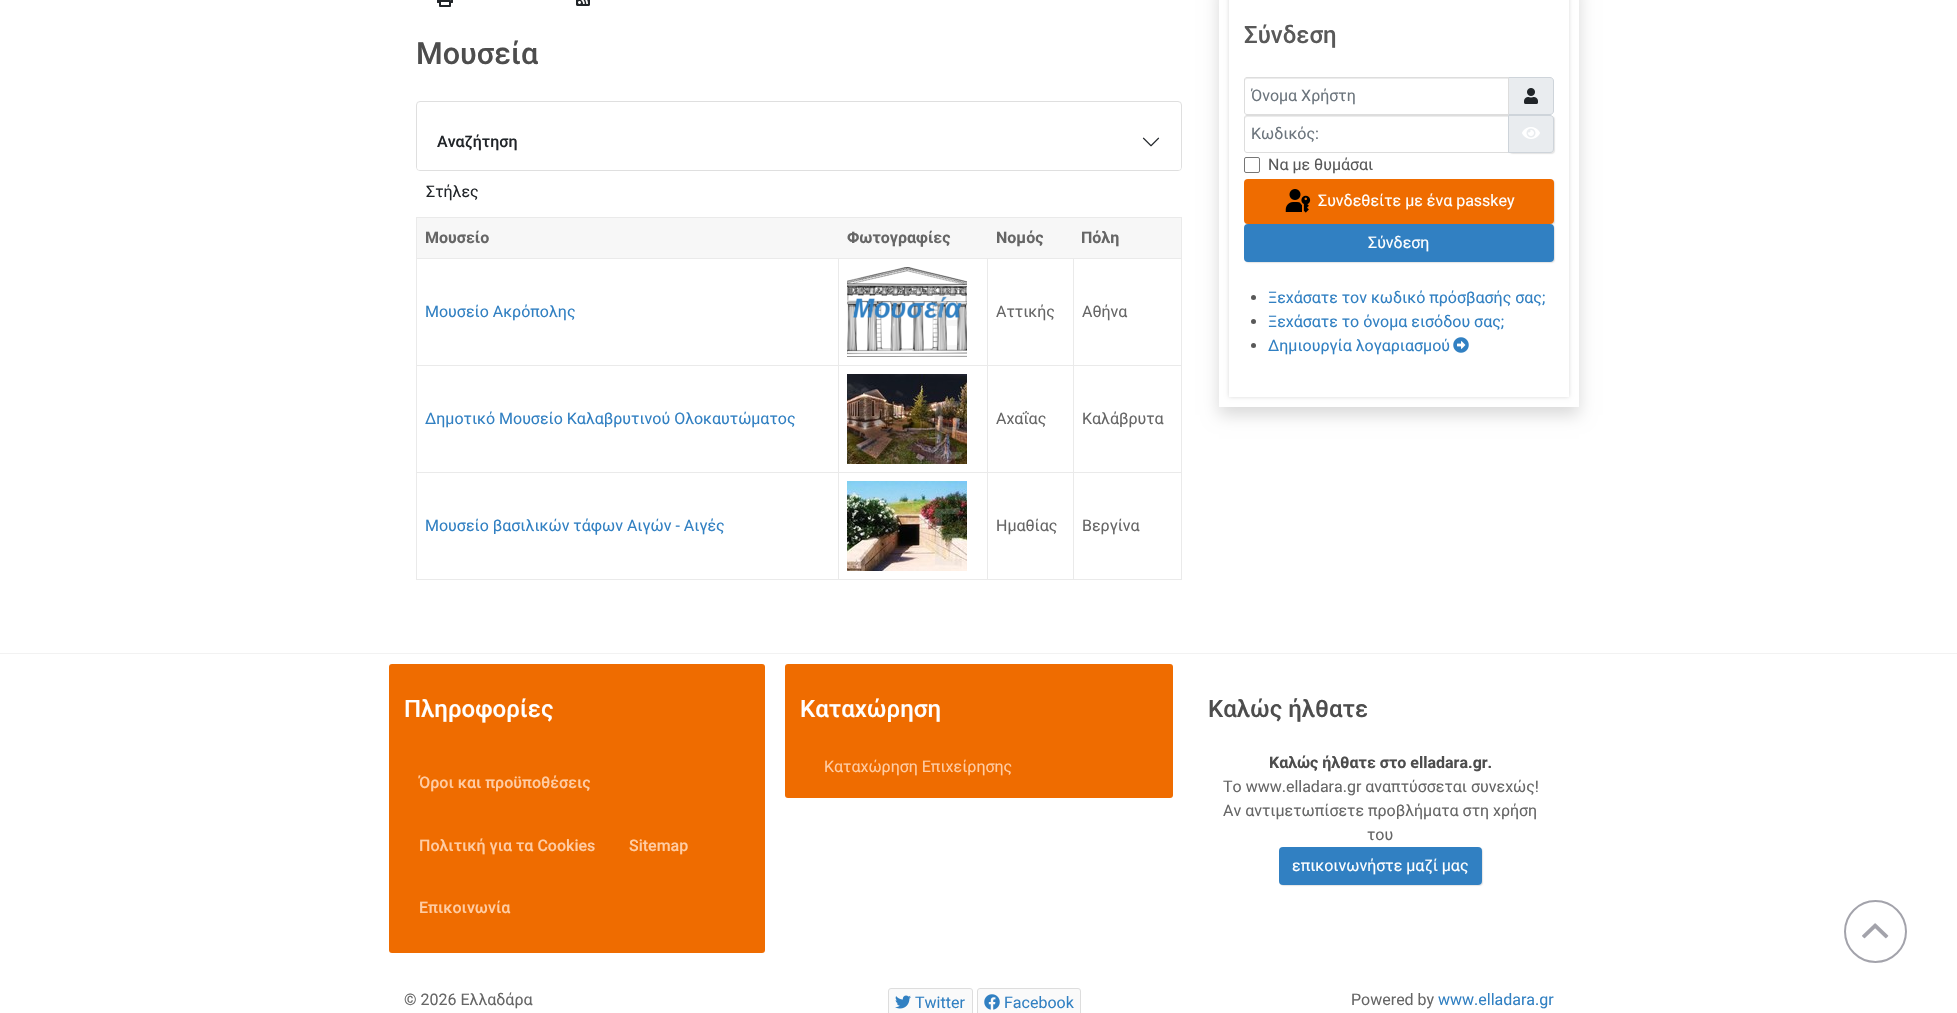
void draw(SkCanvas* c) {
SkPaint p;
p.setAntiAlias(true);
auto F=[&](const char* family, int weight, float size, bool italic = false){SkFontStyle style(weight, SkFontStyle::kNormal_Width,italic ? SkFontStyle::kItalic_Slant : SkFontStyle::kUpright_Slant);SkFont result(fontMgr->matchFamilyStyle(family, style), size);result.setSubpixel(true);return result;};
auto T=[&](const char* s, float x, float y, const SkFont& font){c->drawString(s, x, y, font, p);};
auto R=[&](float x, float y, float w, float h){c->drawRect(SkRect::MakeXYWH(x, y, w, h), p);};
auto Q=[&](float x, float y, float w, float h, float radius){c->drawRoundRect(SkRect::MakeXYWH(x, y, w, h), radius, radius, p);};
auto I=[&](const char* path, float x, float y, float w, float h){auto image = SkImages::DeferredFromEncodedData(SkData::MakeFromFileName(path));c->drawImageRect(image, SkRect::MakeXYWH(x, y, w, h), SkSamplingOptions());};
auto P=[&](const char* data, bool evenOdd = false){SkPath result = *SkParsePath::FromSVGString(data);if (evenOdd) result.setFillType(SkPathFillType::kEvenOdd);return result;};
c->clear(0xffffffff);
I("1.png",437,0,16,7);
I("2.png",576,0,14,6);
auto f1 = F("Roboto",500,30.5);
p.setColor(0xff4d4d4d);
T("Μουσεία",416,64,f1);
p.setStroke(true);
p.setStrokeWidth(1);
p.setColor(0xffdfdfdf);
c->drawRoundRect(SkRect::MakeXYWH(416.5,101.5,765,69),3.5,3.5,p);
p.setStroke(false);
p.setColor(0xffffffff);
Q(417,114,764,56,3);
auto f2 = F("Roboto",500,16);
p.setColor(0xff212529);
T("Αναζήτηση",437,147,f2);
I("3.png",1142,137,18,10);
auto f3 = F("Roboto",400,16);
T("Στήλες",426,197,f3);
p.setColor(0xffeaeaea);
R(416,217,766,1);
R(1181,217,1,363);
R(416,579,766,1);
R(416,217,1,363);
p.setColor(0xfff7f7f7);
R(417,218,764,40);
auto f4 = F("Roboto",700,16);
p.setColor(0xff666666);
T("Μουσείο",425,243,f4);
T("Φωτογραφίες",847,243,f4);
T("Νομός",996,243,f4);
T("Πόλη",1081,243,f4);
p.setColor(0xffeaeaea);
R(1073,258,109,1);
R(1073,365,109,1);
R(1073,472,109,1);
R(1073,472,1,108);
R(987,472,87,1);
R(1073,365,1,108);
R(987,365,87,1);
R(1073,258,1,108);
R(987,258,87,1);
R(987,472,1,108);
R(838,472,150,1);
R(987,365,1,108);
R(838,365,150,1);
R(987,258,1,108);
R(838,258,150,1);
R(838,472,1,108);
R(416,472,423,1);
R(838,365,1,108);
R(416,365,423,1);
R(838,258,1,108);
R(416,258,423,1);
p.setColor(0xff3180c2);
T("Μουσείο Ακρόπολης",425,317,f3);
I("4.png",847,267,120,90);
p.setColor(0xff666666);
T("Αττικής",996,317,f3);
T("Αθήνα",1082,317,f3);
p.setColor(0xff3180c2);
T("Δημοτικό Μουσείο Καλαβρυτινού Ολοκαυτώματος",425,424,f3);
I("5.png",847,374,120,90);
p.setColor(0xff666666);
T("Αχαΐας",996,424,f3);
T("Καλάβρυτα",1082,424,f3);
p.setColor(0xff3180c2);
T("Μουσείο βασιλικών τάφων Αιγών - Αιγές",425,531,f3);
I("6.png",847,481,120,90);
p.setColor(0xff666666);
T("Ημαθίας",996,531,f3);
T("Βεργίνα",1082,531,f3);
c->save();
c->clipPath(P("M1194 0h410v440h-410zm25-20h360v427h-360z",true),true);
p.setColor(0x26000000);
p.setMaskFilter(SkMaskFilter::MakeBlur(kNormal_SkBlurStyle, 8));
c->drawRect(SkRect::MakeXYWH(1219,-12,360,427),p);
p.setMaskFilter(nullptr);
c->restore();
c->save();
c->clipPath(P("M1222 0h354v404h-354zm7-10h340v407h-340z",true),true);
p.setMaskFilter(SkMaskFilter::MakeBlur(kNormal_SkBlurStyle, 2));
c->drawRect(SkRect::MakeXYWH(1229,-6,340,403),p);
p.setMaskFilter(nullptr);
c->restore();
auto f5 = F("Roboto",500,24);
p.setColor(0xff595959);
T("Σύνδεση",1244,43,f5);
p.setColor(0xffececec);
c->drawPath(P("M1247 79h261v-1h-261c-2 0-2 2-2 3c0-1 1-2 2-2z"),p);
p.setColor(0xffe9ecef);
c->drawPath(P("M1508.5 77.5h41.5c2 0 3.5 1.5 3.5 3.5v30c0 2-1.5 3.5-3.5 3.5h-41.5z"),p);
p.setStroke(true);
p.setColor(0xffced4da);
c->drawPath(P("M1508.5 77.5h41.5c2 0 3.5 1.5 3.5 3.5v30c0 2-1.5 3.5-3.5 3.5h-41.5z"),p);
p.setColor(0xffdddddd);
c->drawPath(P("M1247 77.5h261.5v37h-261.5c-1.5 0-2.5-1-2.5-2.5v-32c0-1.5 1-2.5 2.5-2.5z"),p);
c->save();
c->clipRect(SkRect::MakeXYWH(1251,86,251,19));
p.setStroke(false);
p.setColor(0xff6c757d);
T("Όνομα Χρήστη",1251,101,f3);
c->restore();
I("7.png",1524,88,14,16);
p.setColor(0xffececec);
c->drawPath(P("M1247 117h261v-1h-261c-2 0-2 2-2 3c0-1 1-2 2-2z"),p);
p.setStroke(true);
p.setColor(0xffdddddd);
c->drawPath(P("M1247 115.5h261.5v37h-261.5c-1.5 0-2.5-1-2.5-2.5v-32c0-1.5 1-2.5 2.5-2.5z"),p);
p.setStroke(false);
p.setColor(0xff6c757d);
T("Κωδικός:",1251,139,f3);
p.setColor(0x1a000000);
p.setMaskFilter(SkMaskFilter::MakeBlur(kNormal_SkBlurStyle, .5));
c->drawRoundRect(SkRect::MakeXYWH(1509,116,46,38),4,4,p);
p.setMaskFilter(nullptr);
p.setColor(0xffe9ecef);
c->drawPath(P("M1508.5 115.5h41.5c2 0 3.5 1.5 3.5 3.5v30c0 2-1.5 3.5-3.5 3.5h-41.5z"),p);
p.setStroke(true);
p.setColor(0xffced4da);
c->drawPath(P("M1508.5 115.5h41.5c2 0 3.5 1.5 3.5 3.5v30c0 2-1.5 3.5-3.5 3.5h-41.5z"),p);
I("8.png",1522,127,18,12);
p.setColor(0xff767676);
c->drawRoundRect(SkRect::MakeXYWH(1244.5,157.5,15,15),1.5,1.5,p);
p.setStroke(false);
p.setColor(0xff595959);
T("Να με θυμάσαι",1268,170,f3);
p.setColor(0x1a000000);
p.setMaskFilter(SkMaskFilter::MakeBlur(kNormal_SkBlurStyle, .5));
c->drawRoundRect(SkRect::MakeXYWH(1245,180,310,45),4,4,p);
p.setMaskFilter(nullptr);
p.setColor(0xffef6c00);
Q(1244,179,310,45,4);
I("9.png",1285,189,26,24);
p.setColor(0xffffffff);
T("Συνδεθείτε με ένα passkey",1318,206,f3);
p.setColor(0x1a000000);
p.setMaskFilter(SkMaskFilter::MakeBlur(kNormal_SkBlurStyle, .5));
c->drawRoundRect(SkRect::MakeXYWH(1245,225,310,38),4,4,p);
p.setMaskFilter(nullptr);
p.setColor(0xff3180c2);
Q(1244,224,310,38,4);
p.setColor(0xffffffff);
T("Σύνδεση",1368,248,f3);
p.setColor(0xff595959);
c->drawCircle(1253.5,297.5,2.5,p);
p.setColor(0xff3180c2);
T("Ξεχάσατε τον κωδικό πρόσβασής σας;",1268,303,f3);
p.setColor(0xff595959);
c->drawCircle(1253.5,321.5,2.5,p);
p.setColor(0xff3180c2);
T("Ξεχάσατε το όνομα εισόδου σας;",1268,327,f3);
p.setColor(0xff595959);
c->drawCircle(1253.5,345.5,2.5,p);
p.setColor(0xff3180c2);
T("Δημιουργία λογαριασμού",1268,351,f3);
I("10.png",1453,337,16,16);
p.setColor(0xfff2f2f2);
R(0,653,1957,1);
p.setColor(0xffef6c00);
Q(389,664,376,289,3);
p.setColor(0xffffffff);
T("Πληροφορίες",404,717,f5);
p.setColor(0xffffcca3);
T("Όροι και προϋποθέσεις",419,788,f2);
T("Πολιτική για τα Cookies",419,851,f2);
T("Sitemap",629,851,f2);
T("Επικοινωνία",419,913,f2);
p.setColor(0xffef6c00);
Q(785,664,388,134,3);
p.setColor(0xffffffff);
T("Καταχώρηση",800,717,f5);
p.setColor(0xffffcca3);
T("Καταχώρηση Επιχείρησης",824,772,f3);
p.setColor(0xff4d4d4d);
T("Καλώς ήλθατε",1208,717,f5);
T("Καλώς ήλθατε στο elladara.gr.",1269,768,f4);
p.setColor(0xff666666);
T("Το www.elladara.gr αναπτύσσεται συνεχώς!",1223,792,f3);
T("Αν αντιμετωπίσετε προβλήματα στη χρήση",1223,816,f3);
T("του",1367,840,f3);
p.setColor(0x1a000000);
p.setMaskFilter(SkMaskFilter::MakeBlur(kNormal_SkBlurStyle, .5));
c->drawRoundRect(SkRect::MakeXYWH(1280,848,203,38),4,4,p);
p.setMaskFilter(nullptr);
p.setColor(0xff3180c2);
Q(1279,847,203,38,4);
p.setColor(0xffffffff);
T("επικοινωνήστε μαζί μας",1292,871,f3);
p.setColor(0xff666666);
T("© 2026 Ελλαδάρα",404,1005,f3);
p.setColor(0xfffafafa);
c->drawRoundRect(SkRect::MakeXYWH(888.5,988.5,84,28),2.5,2.5,p);
p.setStroke(true);
p.setColor(0xffdddddd);
c->drawRoundRect(SkRect::MakeXYWH(888.5,988.5,84,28),2.5,2.5,p);
I("11.png",895,995,16,14);
p.setStroke(false);
p.setColor(0xff3180c2);
T("Twitter",915,1008,f3);
p.setColor(0xfffafafa);
c->drawRoundRect(SkRect::MakeXYWH(977.5,988.5,103,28),2.5,2.5,p);
p.setStroke(true);
p.setColor(0xffdddddd);
c->drawRoundRect(SkRect::MakeXYWH(977.5,988.5,103,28),2.5,2.5,p);
I("12.png",984,994,16,16);
p.setStroke(false);
p.setColor(0xff3180c2);
T("Facebook",1004,1008,f3);
p.setColor(0xff666666);
T("Powered by",1351,1005,f3);
p.setColor(0xff3180c2);
T("www.elladara.gr",1438,1005,f3);
p.setStroke(true);
p.setStrokeWidth(2);
p.setColor(0xffa3a3ab);
c->drawCircle(1875.5,931.5,30.5,p);
I("13.png",1862,923,27,16);
}
